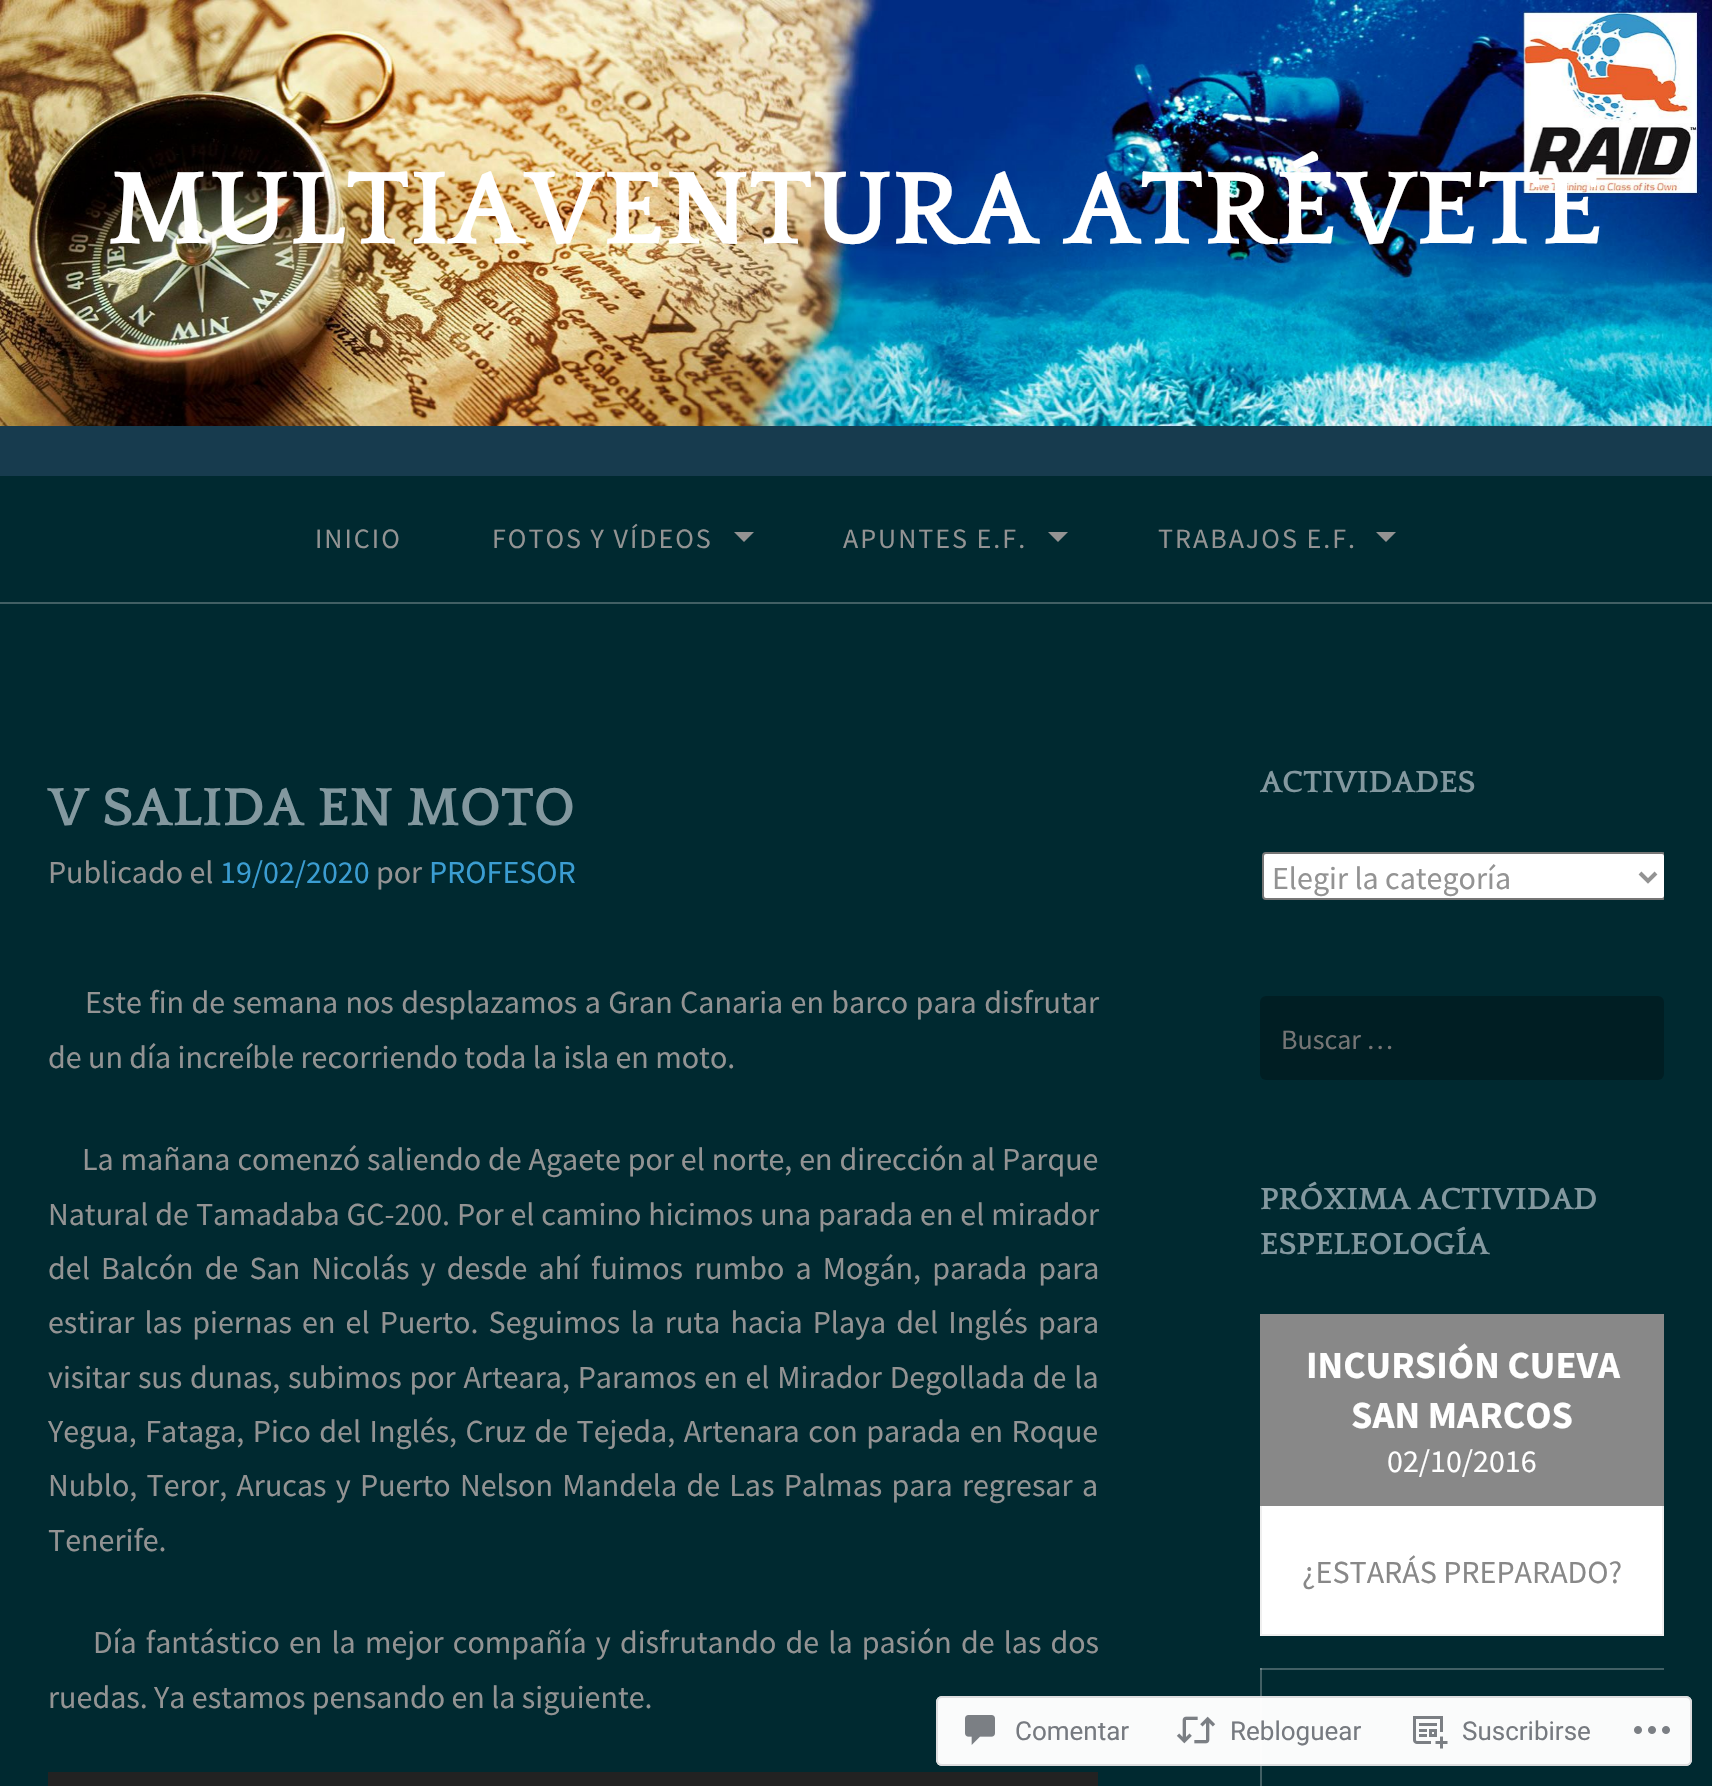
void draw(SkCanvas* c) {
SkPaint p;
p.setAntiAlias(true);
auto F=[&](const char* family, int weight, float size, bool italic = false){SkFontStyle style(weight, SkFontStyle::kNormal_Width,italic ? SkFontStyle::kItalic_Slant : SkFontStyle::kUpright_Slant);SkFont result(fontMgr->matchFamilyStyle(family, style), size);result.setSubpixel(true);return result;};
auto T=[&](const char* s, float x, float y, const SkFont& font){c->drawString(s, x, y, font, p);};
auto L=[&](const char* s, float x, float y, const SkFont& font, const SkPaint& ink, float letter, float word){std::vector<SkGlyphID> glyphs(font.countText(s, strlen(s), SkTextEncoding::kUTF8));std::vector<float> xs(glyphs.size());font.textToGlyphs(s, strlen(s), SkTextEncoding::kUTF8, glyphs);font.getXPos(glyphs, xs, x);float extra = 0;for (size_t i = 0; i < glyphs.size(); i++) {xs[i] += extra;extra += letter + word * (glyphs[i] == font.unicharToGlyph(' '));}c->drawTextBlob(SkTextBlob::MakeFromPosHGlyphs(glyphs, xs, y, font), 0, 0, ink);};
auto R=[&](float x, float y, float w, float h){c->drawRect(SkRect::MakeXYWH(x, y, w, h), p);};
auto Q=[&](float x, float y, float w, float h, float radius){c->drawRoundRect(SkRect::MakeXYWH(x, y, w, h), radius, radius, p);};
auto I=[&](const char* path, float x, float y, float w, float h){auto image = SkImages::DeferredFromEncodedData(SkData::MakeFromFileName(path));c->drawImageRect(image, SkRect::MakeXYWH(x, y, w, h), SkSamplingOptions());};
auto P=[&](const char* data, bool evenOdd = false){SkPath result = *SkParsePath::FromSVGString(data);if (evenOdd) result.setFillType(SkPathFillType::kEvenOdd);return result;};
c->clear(0xff002930);
p.setColor(0xff425f64);
R(1260,1668,2,118);
p.setColor(0xff173b4e);
R(0,0,1712,476);
I("1.png",0,0,1712,426);
auto f1 = F("Quattrocento",700,108);
p.setColor(0xffffffff);
T("MULTIAVENTURA ATRÉVETE",108,243,f1);
p.setColor(0xff425f64);
R(0,602,1712,2);
auto f2 = F("Source Sans Pro",400,28);
p.setColor(0xff939393);
L("INICIO",315,548,f2,p,2,0);
L("FOTOS Y VÍDEOS",492,548,f2,p,2,0);
c->drawPath(P("M734 532h20l-10 10z"),p);
L("APUNTES E.F.",843,548,f2,p,2,0);
c->drawPath(P("M1048 532h20l-10 10z"),p);
L("TRABAJOS E.F.",1158,548,f2,p,2,0);
c->drawPath(P("M1376 532h20l-10 10z"),p);
auto f3 = F("Quattrocento",700,56);
p.setColor(0xff83989f);
T("V SALIDA EN MOTO",48,825,f3);
auto f4 = F("Source Sans Pro",400,32);
p.setColor(0xff939393);
T("Publicado el",48,883,f4);
p.setColor(0xff3b9dd2);
T("19/02/2020",220,883,f4);
p.setColor(0xff939393);
T("por",376,883,f4);
p.setColor(0xff3b9dd2);
T("PROFESOR",429,883,f4);
p.setColor(0xff939393);
L("Este fin de semana nos desplazamos a Gran Canaria en barco para disfrutar",85,1013,f4,p,0,1);
T("de un día increíble recorriendo toda la isla en moto.",48,1068,f4);
L("La mañana comenzó saliendo de Agaete por el norte, en dirección al Parque",82,1170,f4,p,0,.5);
L("Natural de Tamadaba GC-200. Por el camino hicimos una parada en el mirador",48,1225,f4,p,0,.5);
L("del Balcón de San Nicolás y desde ahí fuimos rumbo a Mogán, parada para",48,1279,f4,p,0,4.75);
L("estirar las piernas en el Puerto. Seguimos la ruta hacia Playa del Inglés para",48,1333,f4,p,0,3.75);
L("visitar sus dunas, subimos por Arteara, Paramos en el Mirador Degollada de la",48,1388,f4,p,0,1.4);
L("Yegua, Fataga, Pico del Inglés, Cruz de Tejeda, Artenara con parada en Roque",48,1442,f4,p,0,2.1);
L("Nublo, Teror, Arucas y Puerto Nelson Mandela de Las Palmas para regresar a",48,1496,f4,p,0,2.9);
T("Tenerife.",48,1551,f4);
L("Día fantástico en la mejor compañía y disfrutando de la pasión de las dos",93,1653,f4,p,0,2.75);
T("ruedas. Ya estamos pensando en la siguiente.",48,1708,f4);
p.setStroke(true);
p.setStrokeWidth(40);
p.setColor(0xff222222);
c->drawRect(SkRect::MakeXYWH(68,1792,1010,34),p);
c->save();
c->clipRect(SkRect::MakeXYWH(1260,748,404,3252));
auto f5 = F("Quattrocento",700,32);
p.setStroke(false);
p.setColor(0xff83989f);
T("ACTIVIDADES",1260,792,f5);
p.setColor(0xffffffff);
c->drawRoundRect(SkRect::MakeXYWH(1263,853,402,46),3,3,p);
p.setStroke(true);
p.setStrokeWidth(2);
p.setColor(0xff767676);
c->drawRoundRect(SkRect::MakeXYWH(1263,853,402,46),3,3,p);
c->restore();
p.setStrokeWidth(4);
p.setColor(0xff939393);
c->drawPath(P("M1640 873l8 8l8-8"),p);
p.setStroke(false);
T("Elegir la categoría",1272,889,f4);
p.setColor(0xff001e23);
Q(1260,996,404,84,6);
p.setColor(0xff757575);
T("Buscar …",1281,1049,f2);
p.setColor(0xff83989f);
T("PRÓXIMA ACTIVIDAD",1260,1209,f5);
T("ESPELEOLOGÍA",1260,1254,f5);
p.setColor(0xff888888);
R(1260,1314,404,192);
auto f6 = F("Source Sans Pro",700,38.5);
p.setColor(0xffffffff);
T("INCURSIÓN CUEVA",1306,1378,f6);
T("SAN MARCOS",1351,1428,f6);
T("02/10/2016",1387,1472,f4);
R(1262,1506,400,128);
p.setColor(0xffefefef);
R(1662,1506,2,130);
R(1260,1634,404,2);
R(1260,1506,2,130);
p.setColor(0xff888888);
T("¿ESTARÁS PREPARADO?",1302,1583,f4);
p.setColor(0xff425f64);
R(1260,1668,404,2);
p.setColor(0xff718588);
R(1260,1668,2,2);
p.setColor(0xfaffffff);
Q(936,1696,756,70,6);
p.setStroke(true);
p.setStrokeWidth(2);
p.setColor(0xfadcdcde);
c->drawRoundRect(SkRect::MakeXYWH(937,1697,754,68),5,5,p);
I("2.png",965,1715,30,30);
auto f7 = F("Roboto",400,26);
p.setStroke(false);
p.setColor(0xff767a80);
T("Comentar",1015,1740,f7);
I("3.png",1176,1716,40,28);
T("Rebloguear",1230,1740,f7);
I("4.png",1413,1716,35,33);
T("Suscribirse",1462,1740,f7);
I("5.png",1634,1726,36,8);
}
